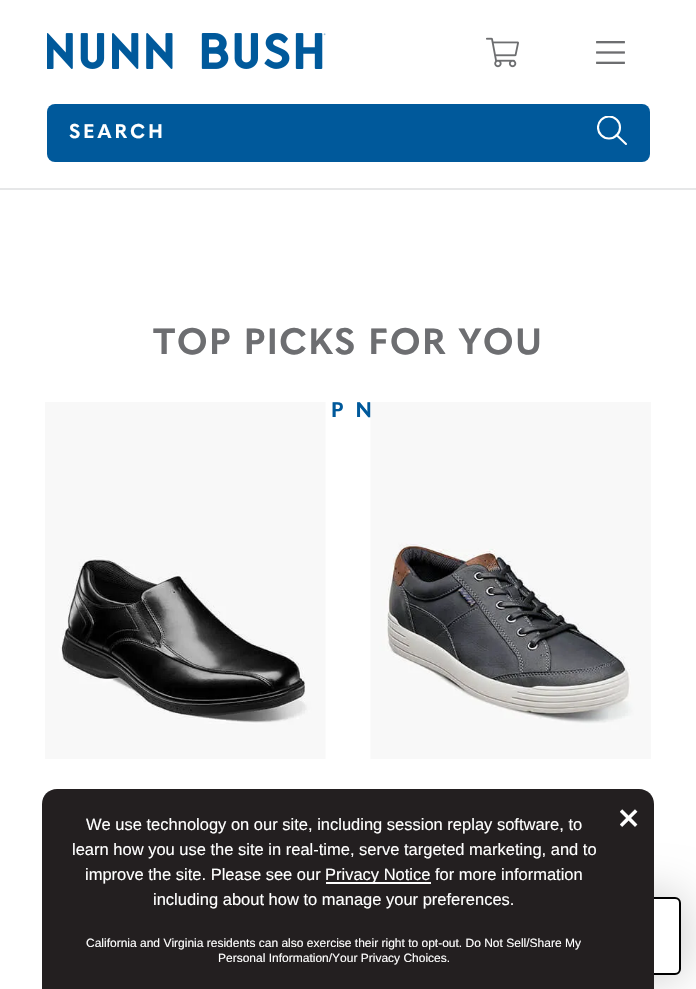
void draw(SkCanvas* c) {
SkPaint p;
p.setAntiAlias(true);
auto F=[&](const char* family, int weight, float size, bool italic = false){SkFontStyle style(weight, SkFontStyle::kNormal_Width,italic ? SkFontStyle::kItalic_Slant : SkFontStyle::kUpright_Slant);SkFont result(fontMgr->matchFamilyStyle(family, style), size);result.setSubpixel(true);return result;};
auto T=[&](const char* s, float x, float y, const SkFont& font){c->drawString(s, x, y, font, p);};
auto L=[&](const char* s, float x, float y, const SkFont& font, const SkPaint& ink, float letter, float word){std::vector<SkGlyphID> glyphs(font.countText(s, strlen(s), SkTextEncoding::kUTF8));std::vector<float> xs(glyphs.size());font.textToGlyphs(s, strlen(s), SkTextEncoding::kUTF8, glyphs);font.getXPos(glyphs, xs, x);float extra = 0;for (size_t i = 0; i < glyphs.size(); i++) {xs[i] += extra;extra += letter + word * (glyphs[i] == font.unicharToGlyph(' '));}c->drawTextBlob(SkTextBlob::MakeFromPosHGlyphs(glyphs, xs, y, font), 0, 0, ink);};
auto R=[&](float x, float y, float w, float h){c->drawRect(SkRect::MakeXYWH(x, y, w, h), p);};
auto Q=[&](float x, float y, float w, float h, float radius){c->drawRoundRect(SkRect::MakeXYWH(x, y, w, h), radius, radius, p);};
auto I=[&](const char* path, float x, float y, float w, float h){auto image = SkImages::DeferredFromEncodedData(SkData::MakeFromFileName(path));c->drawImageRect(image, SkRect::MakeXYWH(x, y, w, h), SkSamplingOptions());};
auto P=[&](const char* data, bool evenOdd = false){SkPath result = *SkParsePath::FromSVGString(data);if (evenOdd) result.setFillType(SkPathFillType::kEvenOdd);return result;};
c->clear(0xffffffff);
p.setColor(0xffe6e7e8);
R(0,188,696,2);
I("1.png",47,33,279,36);
I("2.png",486,37,33,31);
I("3.png",596,41,29,23);
p.setColor(0xff00599b);
Q(47,104,603,58,8);
auto f1 = F("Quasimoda",700,19.5);
p.setColor(0xffffffff);
L("SEARCH",69,138,f1,p,3,0);
c->save();
c->clipRect(SkRect::MakeXYWH(597,116,30,30));
p.setStroke(true);
p.setStrokeWidth(2.1);
c->drawCircle(609,127.5,11,p);
c->restore();
p.setStrokeCap(SkPaint::kRound_Cap);
p.setStrokeJoin(SkPaint::kRound_Join);
c->drawPath(P("M616.5 135l9.5 9"),p);
auto f2 = F("Quasimoda",700,36);
p.setStroke(false);
p.setColor(0xff6d6e71);
L("TOP PICKS FOR YOU",153,354,f2,p,1.5,0);
I("4.png",45,402,281,357);
auto f3 = F("Quasimoda",700,21);
p.setColor(0xff00599b);
L("P N",331,417,f3,p,3,0);
I("5.png",370,402,281,357);
p.setColor(0x33000000);
p.setMaskFilter(SkMaskFilter::MakeBlur(kNormal_SkBlurStyle, 22.5));
c->drawRoundRect(SkRect::MakeXYWH(521,896,162,81),8,8,p);
p.setMaskFilter(nullptr);
p.setColor(0xffffffff);
c->drawRoundRect(SkRect::MakeXYWH(523,898,157,76),5,5,p);
p.setStroke(true);
p.setStrokeWidth(2);
p.setStrokeCap(SkPaint::kButt_Cap);
p.setStrokeJoin(SkPaint::kMiter_Join);
p.setColor(0xff000000);
c->drawRoundRect(SkRect::MakeXYWH(523,898,157,76),5,5,p);
p.setStroke(false);
p.setColor(0xff231f20);
c->drawPath(P("M57 789h582c8.5 0 15 6.5 15 15v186h-612v-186c0-8.5 6.5-15 15-15z"),p);
auto f4 = F("Liberation Sans",400,16.5);
p.setColor(0xffffffff);
T("We use technology on our site, including session replay software, to",86,830,f4);
T("learn how you use the site in real-time, serve targeted marketing, and to",72,855,f4);
T("improve the site. Please see our",85,880,f4);
R(326,882,105,2);
T("Privacy Notice for more information",325,880,f4);
T("including about how to manage your preferences.",153,905,f4);
auto f5 = F("Liberation Sans",400,12);
T("California and Virginia residents can also exercise their right to opt-out. Do Not Sell/Share My",86,947,f5);
T("Personal Information/Your Privacy Choices.",218,962,f5);
T("×",616,829,f2);
}
